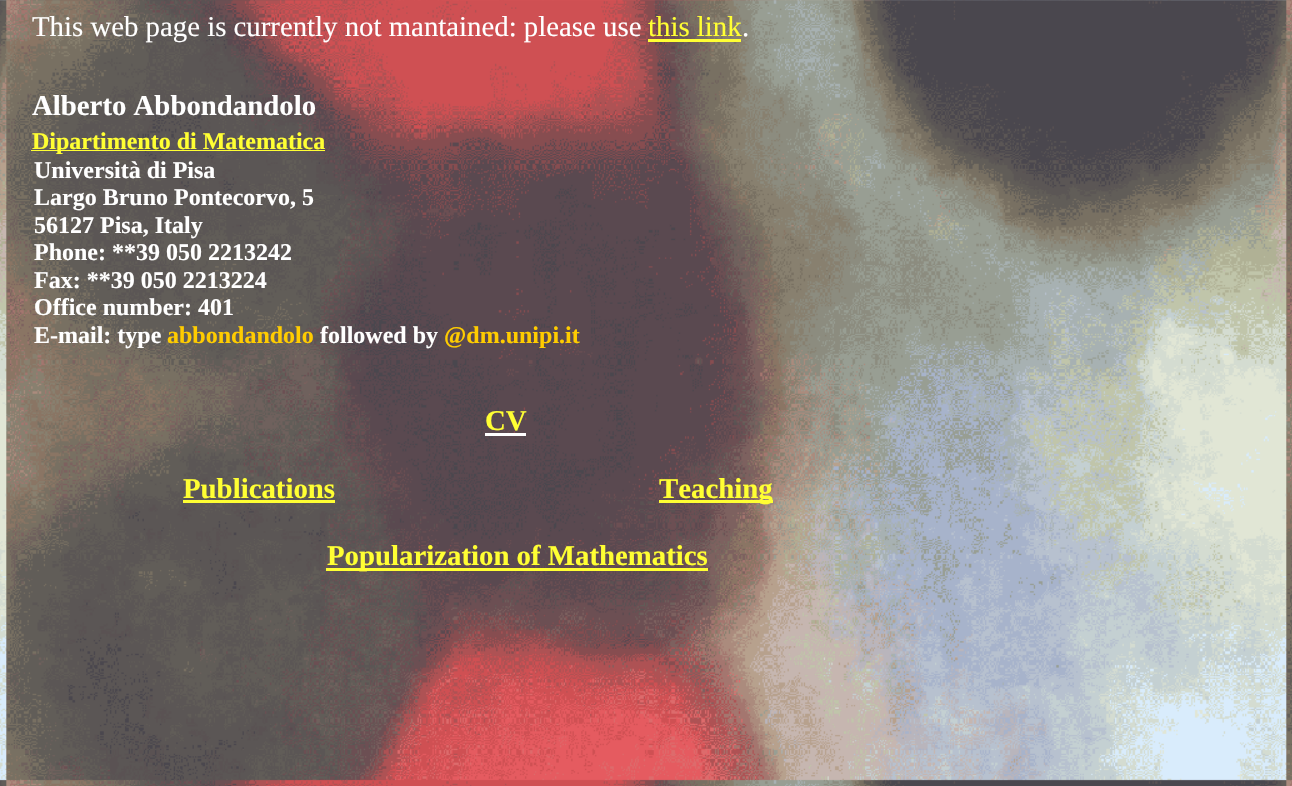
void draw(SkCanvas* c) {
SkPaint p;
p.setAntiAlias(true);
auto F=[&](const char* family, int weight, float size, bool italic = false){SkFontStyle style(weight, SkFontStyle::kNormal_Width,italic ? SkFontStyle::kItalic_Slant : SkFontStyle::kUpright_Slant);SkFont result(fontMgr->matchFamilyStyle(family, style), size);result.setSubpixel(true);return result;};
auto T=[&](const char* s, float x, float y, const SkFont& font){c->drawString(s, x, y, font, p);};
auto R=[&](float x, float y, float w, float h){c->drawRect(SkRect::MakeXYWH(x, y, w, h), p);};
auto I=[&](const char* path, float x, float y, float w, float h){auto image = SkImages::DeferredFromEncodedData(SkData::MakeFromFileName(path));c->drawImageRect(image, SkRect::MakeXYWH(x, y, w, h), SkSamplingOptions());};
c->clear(0xffffffff);
I("1.png",0,0,1292,786);
auto f1 = F("Liberation Serif",400,28.8);
p.setColor(0xffffffff);
T("This web page is currently not mantained: please use",32,36,f1);
p.setColor(0xffffff33);
T("this link",648,36,f1);
p.setColor(0xffffffff);
T(".",742,36,f1);
p.setColor(0xffffff33);
R(648,39,93,3);
auto f2 = F("Liberation Serif",700,28.8);
p.setColor(0xffffffff);
T("Alberto Abbondandolo",32,115,f2);
p.setColor(0xffffff33);
R(31,150,294,1);
auto f3 = F("Liberation Serif",700,24);
T("Dipartimento di Matematica",32,149,f3);
p.setColor(0xffffffff);
T("Università di Pisa",34,178,f3);
T("Largo Bruno Pontecorvo, 5",34,205,f3);
T("56127 Pisa, Italy",34,233,f3);
T("Phone: **39 050 2213242",34,260,f3);
T("Fax: **39 050 2213224",34,288,f3);
T("Office number: 401",34,315,f3);
T("E-mail: type",34,343,f3);
p.setColor(0xffffcc00);
T("abbondandolo",167,343,f3);
p.setColor(0xffffffff);
T("followed by",320,343,f3);
p.setColor(0xffffcc00);
T("@dm.unipi.it",444,343,f3);
p.setColor(0xffffff33);
T("CV",485,430,f2);
p.setColor(0xffffffff);
R(485,433,41,3);
p.setColor(0xffffff33);
T("Publications",183,498,f2);
R(183,500,152,3);
R(659,500,114,3);
T("Teaching",659,498,f2);
R(326,568,382,3);
T("Popularization of Mathematics",327,565,f2);
}
